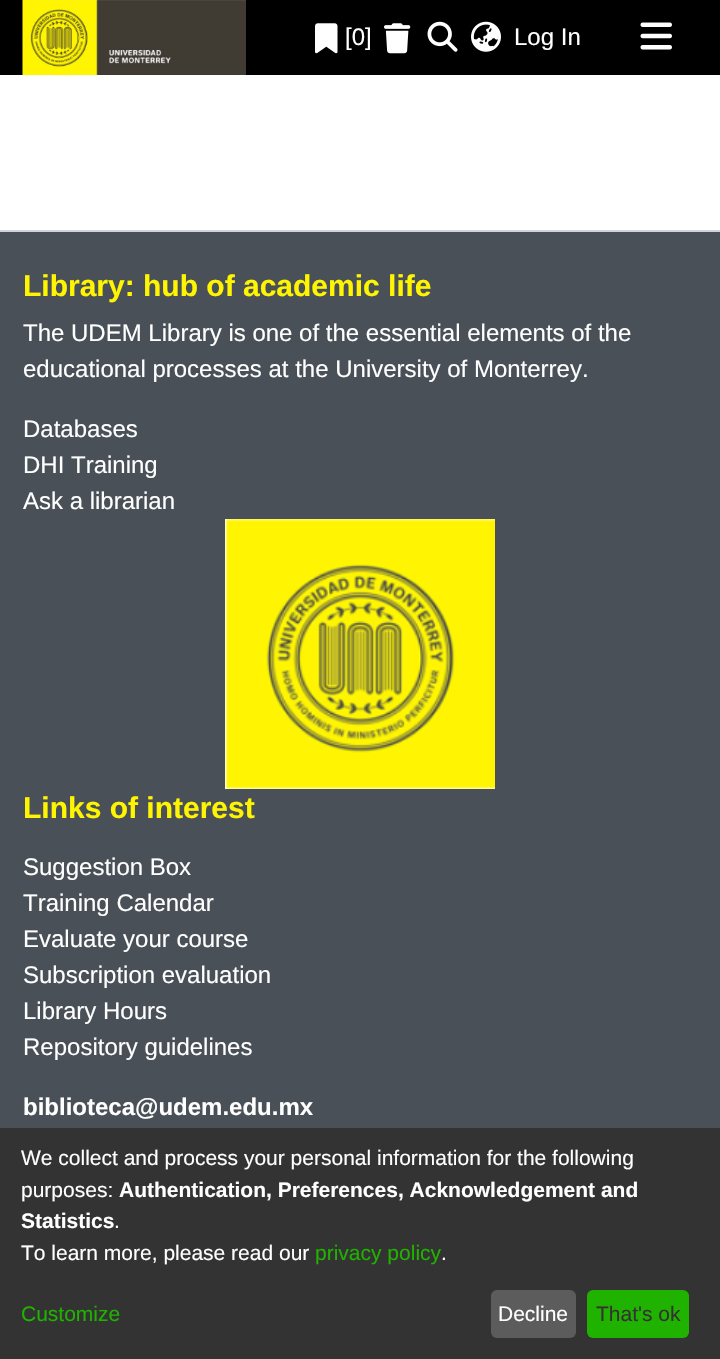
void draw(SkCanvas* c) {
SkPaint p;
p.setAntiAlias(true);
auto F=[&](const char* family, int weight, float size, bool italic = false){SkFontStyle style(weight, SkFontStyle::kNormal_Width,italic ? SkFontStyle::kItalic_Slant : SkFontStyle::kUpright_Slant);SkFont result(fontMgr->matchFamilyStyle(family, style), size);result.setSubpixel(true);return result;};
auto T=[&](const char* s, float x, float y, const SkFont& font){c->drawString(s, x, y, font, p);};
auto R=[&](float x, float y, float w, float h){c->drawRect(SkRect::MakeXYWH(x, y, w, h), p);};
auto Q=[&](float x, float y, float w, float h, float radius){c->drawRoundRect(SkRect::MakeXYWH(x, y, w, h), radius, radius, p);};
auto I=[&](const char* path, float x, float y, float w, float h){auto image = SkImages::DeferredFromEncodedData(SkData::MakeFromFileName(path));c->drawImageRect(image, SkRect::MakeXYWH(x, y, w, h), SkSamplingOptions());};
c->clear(0xffffffff);
p.setColor(0xff000000);
R(0,0,720,75);
I("1.png",22,0,224,75);
I("2.png",315,23,23,31);
auto f1 = F("Liberation Sans",400,24);
p.setColor(0xffffffff);
T("[0]",345,45,f1);
I("3.png",384,23,27,31);
I("4.png",427,21,31,31);
I("5.png",471,21,30,31);
T("Log In",514,45,f1);
I("6.png",640,22,32,28);
p.setColor(0xff495057);
R(0,232,720,896);
p.setColor(0xffced4da);
R(0,230,720,2);
auto f2 = F("Liberation Sans",700,30);
p.setColor(0xfffff500);
T("Library: hub of academic life",23,296,f2);
p.setColor(0xffffffff);
T("The UDEM Library is one of the essential elements of the",23,341,f1);
T("educational processes at the University of Monterrey.",23,377,f1);
T("Databases",23,437,f1);
T("DHI Training",23,473,f1);
T("Ask a librarian",23,509,f1);
I("7.png",225,519,270,270);
p.setColor(0xfffff500);
T("Links of interest",23,818,f2);
p.setColor(0xffffffff);
T("Suggestion Box",23,875,f1);
T("Training Calendar",23,911,f1);
T("Evaluate your course",23,947,f1);
T("Subscription evaluation",23,983,f1);
T("Library Hours",23,1019,f1);
T("Repository guidelines",23,1055,f1);
auto f3 = F("Liberation Sans",700,24);
T("biblioteca@udem.edu.mx",23,1115,f3);
p.setColor(0xff333333);
R(0,1128,720,231);
auto f4 = F("Liberation Sans",400,21);
p.setColor(0xffffffff);
T("We collect and process your personal information for the following",21,1165,f4);
T("purposes:",21,1197,f4);
auto f5 = F("Liberation Sans",700,21);
T("Authentication, Preferences, Acknowledgement and",119,1197,f5);
T("Statistics",21,1228,f5);
T(".",114,1228,f4);
T("To learn more, please read our",21,1260,f4);
p.setColor(0xff1fb300);
T("privacy policy",315,1260,f4);
p.setColor(0xffffffff);
T(".",441,1260,f4);
p.setColor(0xff1fb300);
T("Customize",21,1321,f4);
p.setColor(0xff5c5c5c);
Q(491,1290,85,48,6);
p.setColor(0xffffffff);
T("Decline",498,1321,f4);
p.setColor(0xff1fb300);
Q(587,1290,102,48,6);
p.setColor(0xff333333);
T("That's ok",596,1321,f4);
}
